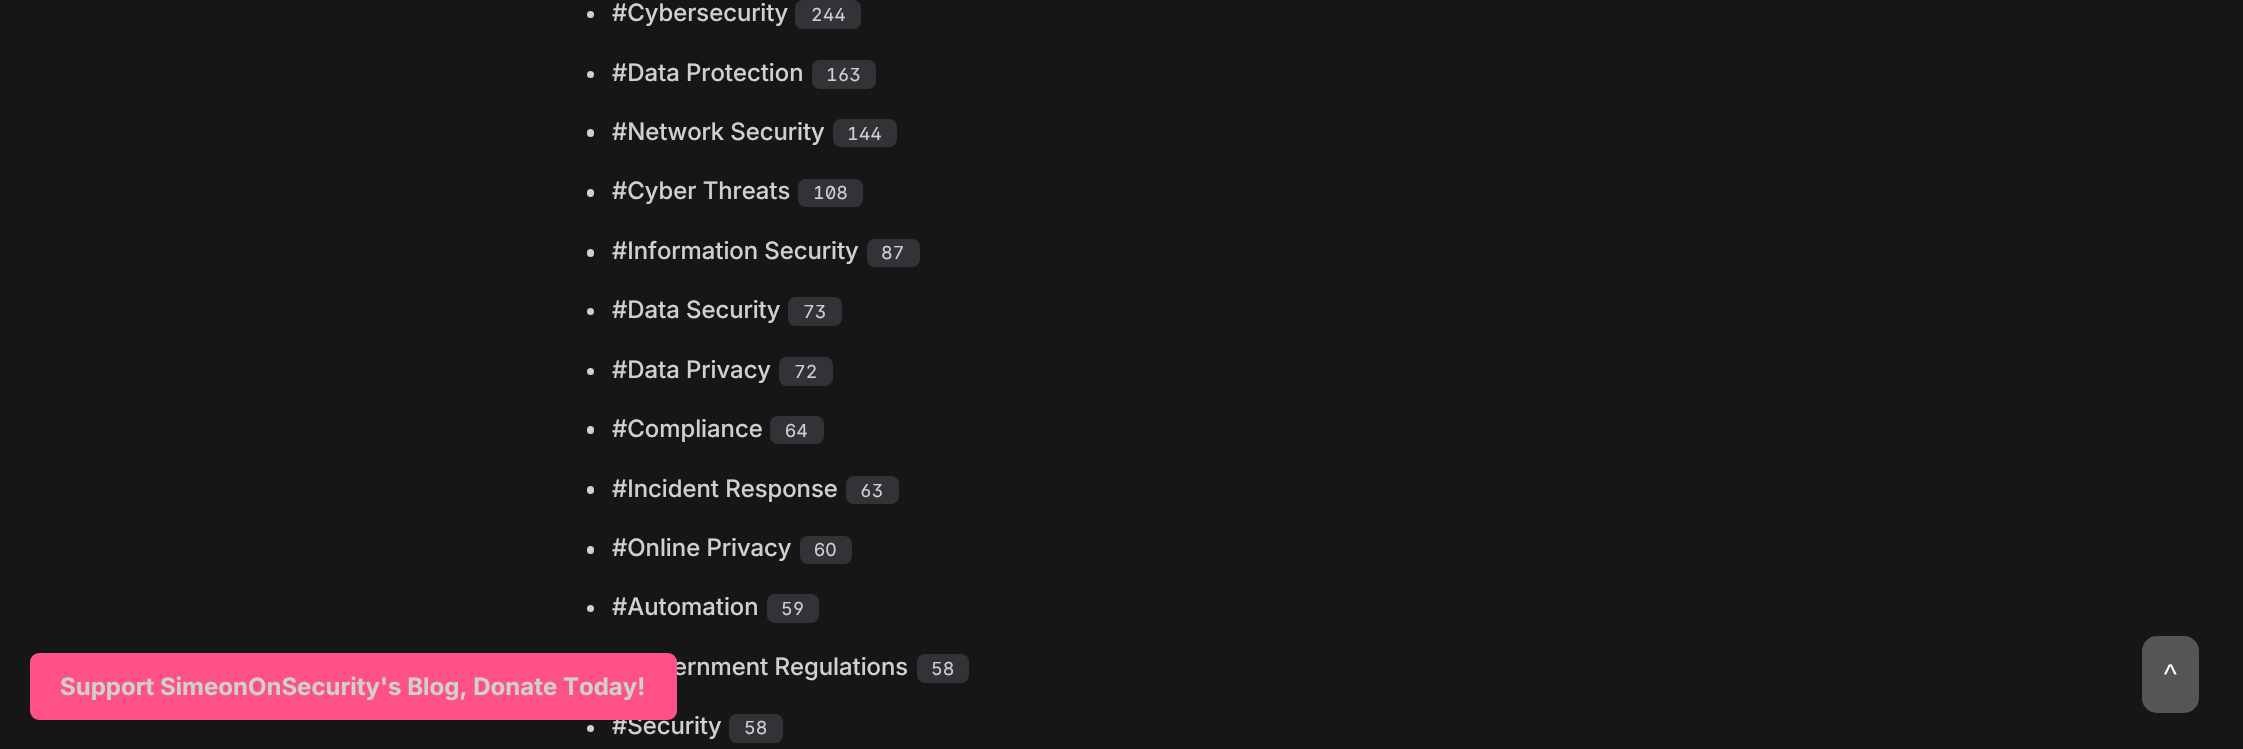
void draw(SkCanvas* c) {
SkPaint p;
p.setAntiAlias(true);
auto F=[&](const char* family, int weight, float size, bool italic = false){SkFontStyle style(weight, SkFontStyle::kNormal_Width,italic ? SkFontStyle::kItalic_Slant : SkFontStyle::kUpright_Slant);SkFont result(fontMgr->matchFamilyStyle(family, style), size);result.setSubpixel(true);return result;};
auto T=[&](const char* s, float x, float y, const SkFont& font){c->drawString(s, x, y, font, p);};
auto Q=[&](float x, float y, float w, float h, float radius){c->drawRoundRect(SkRect::MakeXYWH(x, y, w, h), radius, radius, p);};
c->clear(0xff161617);
p.setColor(0xffd0d0d3);
c->drawCircle(590.5,14.5,3.5,p);
auto f1 = F("Inter",500,24);
T("#Cybersecurity",612,21,f1);
p.setColor(0xff323337);
Q(795,0,66,29,8);
auto f2 = F("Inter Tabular",400,18);
p.setColor(0xffd0d0d3);
T("244",811,21,f2);
c->drawCircle(590.5,74.5,3.5,p);
T("#Data Protection",612,81,f1);
p.setColor(0xff323337);
Q(812,60,64,29,8);
p.setColor(0xffd0d0d3);
T("163",826,81,f2);
Q(587,129,7,8,3.5);
T("#Network Security",612,140,f1);
p.setColor(0xff323337);
Q(833,119,64,28,8);
p.setColor(0xffd0d0d3);
T("144",847,140,f2);
Q(587,189,7,8,3.5);
T("#Cyber Threats",612,199,f1);
p.setColor(0xff323337);
Q(798,179,65,28,8);
p.setColor(0xffd0d0d3);
T("108",813,199,f2);
Q(587,249,7,8,3.5);
T("#Information Security",612,259,f1);
p.setColor(0xff323337);
Q(867,239,53,28,8);
p.setColor(0xffd0d0d3);
T("87",881,259,f2);
c->drawCircle(590.5,311.5,3.5,p);
T("#Data Security",612,318,f1);
p.setColor(0xff323337);
Q(788,297,54,29,8);
p.setColor(0xffd0d0d3);
T("73",803,318,f2);
c->drawCircle(590.5,371.5,3.5,p);
T("#Data Privacy",612,378,f1);
p.setColor(0xff323337);
Q(779,357,54,29,8);
p.setColor(0xffd0d0d3);
T("72",794,378,f2);
Q(587,426,7,8,3.5);
T("#Compliance",612,437,f1);
p.setColor(0xff323337);
Q(770,416,54,28,8);
auto f3 = F("Inter",400,18);
p.setColor(0xffd0d0d3);
T("64",785,437,f3);
Q(587,486,7,8,3.5);
T("#Incident Response",612,497,f1);
p.setColor(0xff323337);
Q(846,476,53,28,8);
p.setColor(0xffd0d0d3);
T("63",860,497,f2);
Q(587,546,7,8,3.5);
T("#Online Privacy",612,556,f1);
p.setColor(0xff323337);
Q(800,536,52,28,8);
p.setColor(0xffd0d0d3);
T("60",814,556,f3);
c->drawCircle(590.5,608.5,3.5,p);
T("#Automation",612,615,f1);
p.setColor(0xff323337);
Q(767,594,52,29,8);
p.setColor(0xffd0d0d3);
T("59",781,615,f2);
T("ernment Regulations",673,675,f1);
p.setColor(0xff323337);
Q(917,654,52,29,8);
p.setColor(0xffd0d0d3);
T("58",931,675,f2);
c->drawCircle(590.5,728.5,3.5,p);
T("#Security",612,734,f1);
p.setColor(0xff323337);
Q(729,714,54,29,8);
p.setColor(0xffd0d0d3);
T("58",744,734,f2);
p.setColor(0xff555555);
Q(2142,636,57,77,15);
auto f4 = F("Liberation Sans",400,27);
p.setColor(0xffffffff);
T("^",2164,683,f4);
p.setColor(0xfffe5186);
Q(30,653,647,67,9);
auto f5 = F("Inter",700,24);
p.setColor(0xffd0d0d3);
T("Support SimeonOnSecurity's Blog, Donate Today!",60,695,f5);
}
